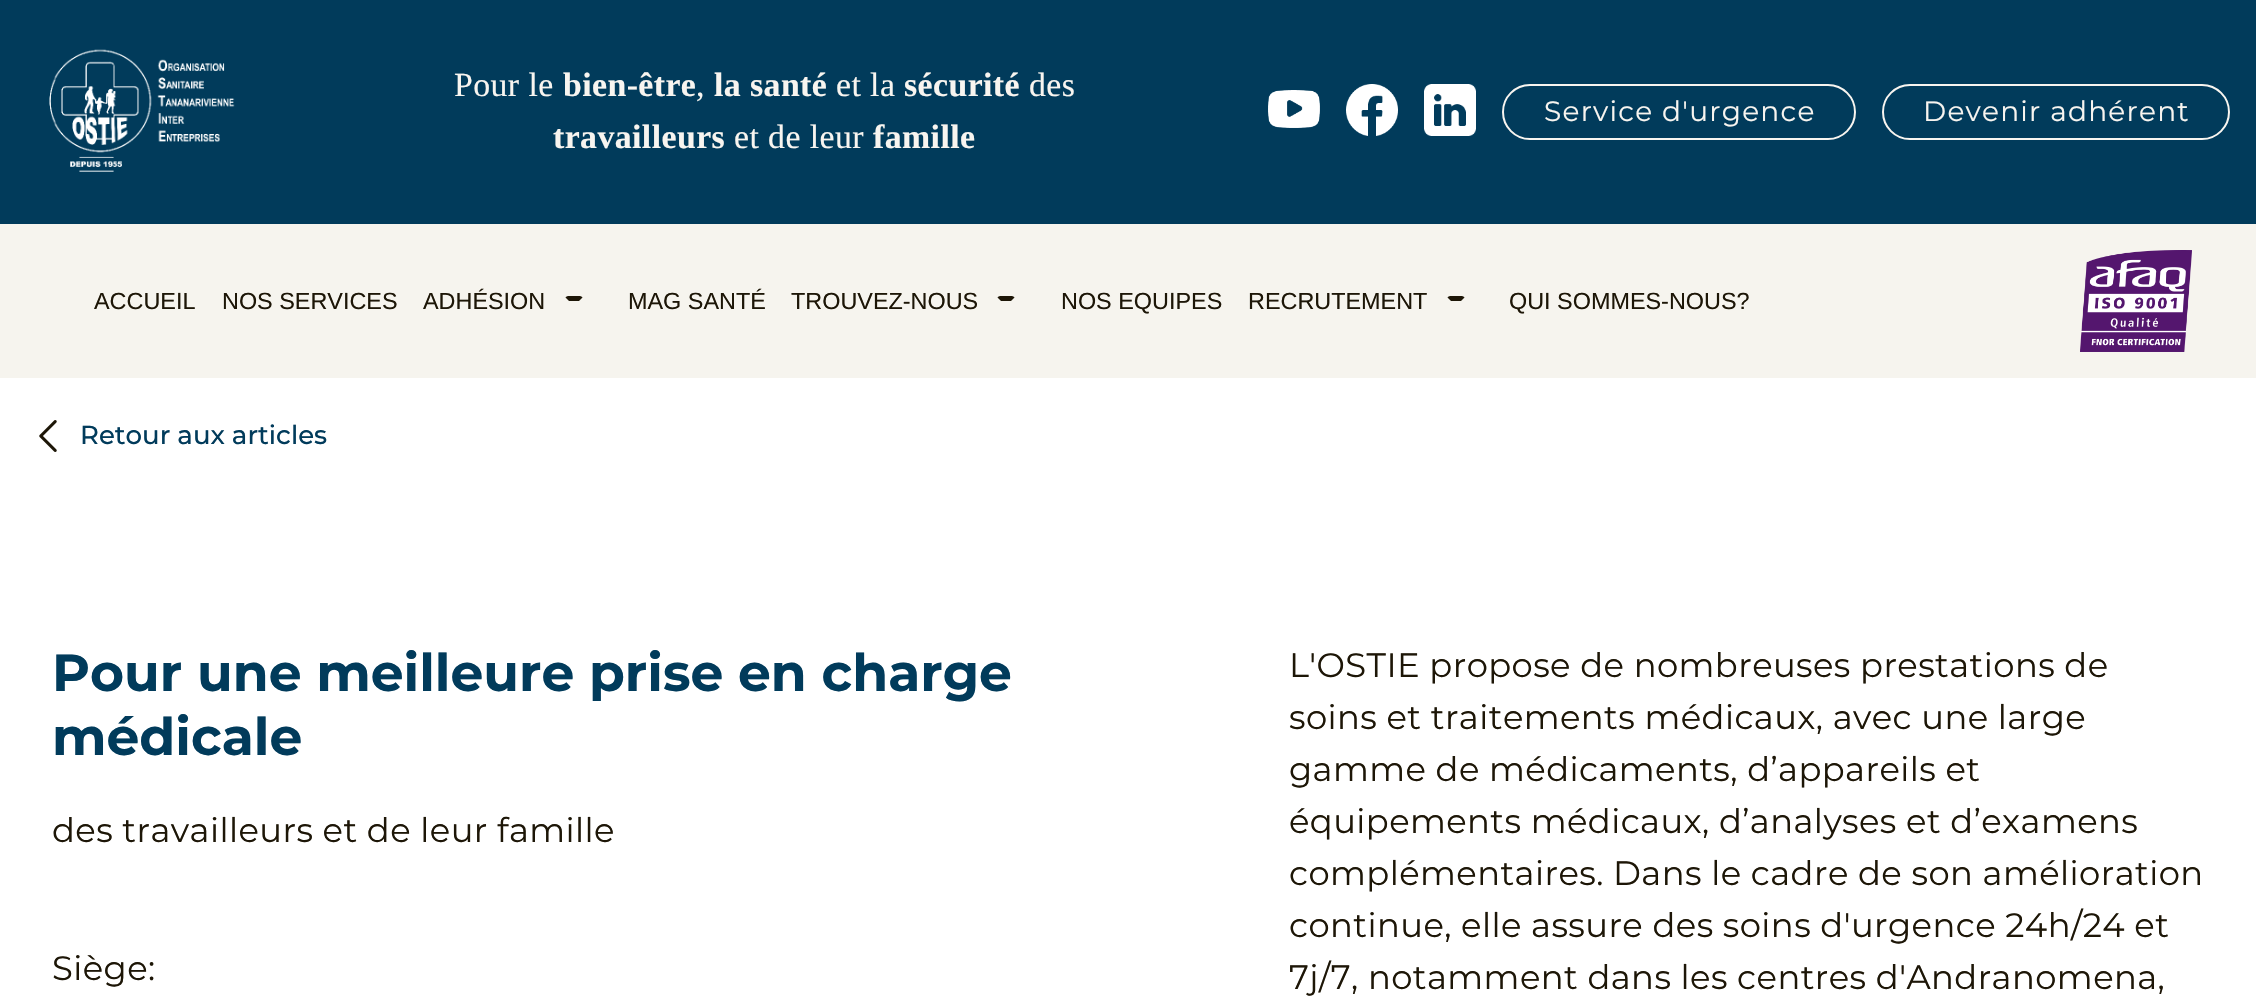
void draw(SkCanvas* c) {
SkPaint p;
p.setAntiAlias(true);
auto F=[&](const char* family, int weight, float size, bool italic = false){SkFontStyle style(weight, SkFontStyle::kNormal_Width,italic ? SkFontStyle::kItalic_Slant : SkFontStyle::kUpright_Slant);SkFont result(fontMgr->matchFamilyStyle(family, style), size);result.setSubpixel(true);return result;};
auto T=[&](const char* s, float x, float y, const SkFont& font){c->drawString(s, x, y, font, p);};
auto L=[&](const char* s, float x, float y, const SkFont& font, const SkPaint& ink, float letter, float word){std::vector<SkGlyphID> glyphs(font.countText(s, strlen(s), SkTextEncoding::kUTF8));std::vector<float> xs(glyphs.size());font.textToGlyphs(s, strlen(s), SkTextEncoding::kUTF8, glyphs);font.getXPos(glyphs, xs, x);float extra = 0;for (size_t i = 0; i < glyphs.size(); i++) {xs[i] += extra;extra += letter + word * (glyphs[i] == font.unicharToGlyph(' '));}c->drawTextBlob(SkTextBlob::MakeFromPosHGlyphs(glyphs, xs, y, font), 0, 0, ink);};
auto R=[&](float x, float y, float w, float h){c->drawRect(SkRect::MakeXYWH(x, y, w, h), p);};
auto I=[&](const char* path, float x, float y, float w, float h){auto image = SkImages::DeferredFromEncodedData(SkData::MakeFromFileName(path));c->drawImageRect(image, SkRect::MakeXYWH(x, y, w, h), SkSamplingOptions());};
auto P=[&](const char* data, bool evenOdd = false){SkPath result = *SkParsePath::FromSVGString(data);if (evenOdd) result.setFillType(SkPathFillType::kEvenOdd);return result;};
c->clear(0xffffffff);
p.setColor(0xff013b5b);
R(0,0,2256,224);
I("1.png",49,49,186,123);
auto f1 = F("Liberation Serif",400,33.8);
p.setColor(0xfff8f5f0);
L("Pour le",454,96,f1,p,.42,0);
auto f2 = F("Liberation Serif",700,33.8);
L("bien-être",563,96,f2,p,.42,0);
L(",",696,96,f1,p,.42,0);
L("la santé",714,96,f2,p,.42,0);
L("et la",836,96,f1,p,.42,0);
L("sécurité",904,96,f2,p,.42,0);
L("des",1029,96,f1,p,.42,0);
L("travailleurs",553,148,f2,p,.42,0);
L("et de leur",734,148,f1,p,.42,0);
L("famille",873,148,f2,p,.42,0);
I("2.png",1268,90,52,38);
I("3.png",1346,84,52,52);
I("4.png",1424,84,52,52);
p.setStroke(true);
p.setStrokeWidth(2);
c->drawRoundRect(SkRect::MakeXYWH(1503,85,352,54),27,27,p);
auto f3 = F("Montserrat",400,28);
p.setStroke(false);
L("Service d'urgence",1544,121,f3,p,1.25,0);
p.setStroke(true);
c->drawRoundRect(SkRect::MakeXYWH(1883,85,346,54),27,27,p);
p.setStroke(false);
L("Devenir adhérent",1923,121,f3,p,1.25,0);
p.setColor(0xfff6f4ee);
R(0,224,2256,154);
auto f4 = F("Liberation Sans",400,23.4);
p.setColor(0xff1d1607);
T("ACCUEIL",94,309,f4);
T("NOS SERVICES",222,309,f4);
T("ADHÉSION",423,309,f4);
c->drawPath(P("M569 296c-1.5 0-3 .5-3.5 1.5l3.5 3.5h10l3.5-3.5c-.5-1-2-1.5-3.5-1.5z"),p);
T("MAG SANTÉ",628,309,f4);
T("TROUVEZ-NOUS",791,309,f4);
c->drawPath(P("M1001 296c-1.5 0-3 .5-3.5 1.5l3.5 3.5h10l3.5-3.5c-.5-1-2-1.5-3.5-1.5z"),p);
T("NOS EQUIPES",1061,309,f4);
T("RECRUTEMENT",1248,309,f4);
c->drawPath(P("M1451 296c-1.5 0-3 .5-3.5 1.5l3.5 3.5h10l3.5-3.5c-.5-1-2-1.5-3.5-1.5z"),p);
T("QUI SOMMES-NOUS?",1509,309,f4);
I("5.png",2080,250,112,102);
I("6.png",39,420,18,32);
auto f5 = F("Montserrat",500,26);
p.setColor(0xff013b5b);
T("Retour aux articles",80,444,f5);
auto f6 = F("Montserrat",700,52);
T("Pour une meilleure prise en charge",52,691,f6);
T("médicale",52,755,f6);
auto f7 = F("Montserrat",400,33.8);
p.setColor(0xff1d1607);
L("des travailleurs et de leur famille",52,842,f7,p,.42,0);
L("L'OSTIE propose de nombreuses prestations de",1289,677,f7,p,.42,0);
L("soins et traitements médicaux, avec une large",1289,729,f7,p,.42,0);
L("gamme de médicaments, d’appareils et",1289,781,f7,p,.42,0);
L("équipements médicaux, d’analyses et d’examens",1289,833,f7,p,.42,0);
L("complémentaires. Dans le cadre de son amélioration",1289,885,f7,p,.42,0);
L("continue, elle assure des soins d'urgence 24h/24 et",1289,937,f7,p,.42,0);
L("7j/7, notamment dans les centres d'Andranomena,",1289,989,f7,p,.42,0);
L("Siège:",52,980,f7,p,.42,0);
}
